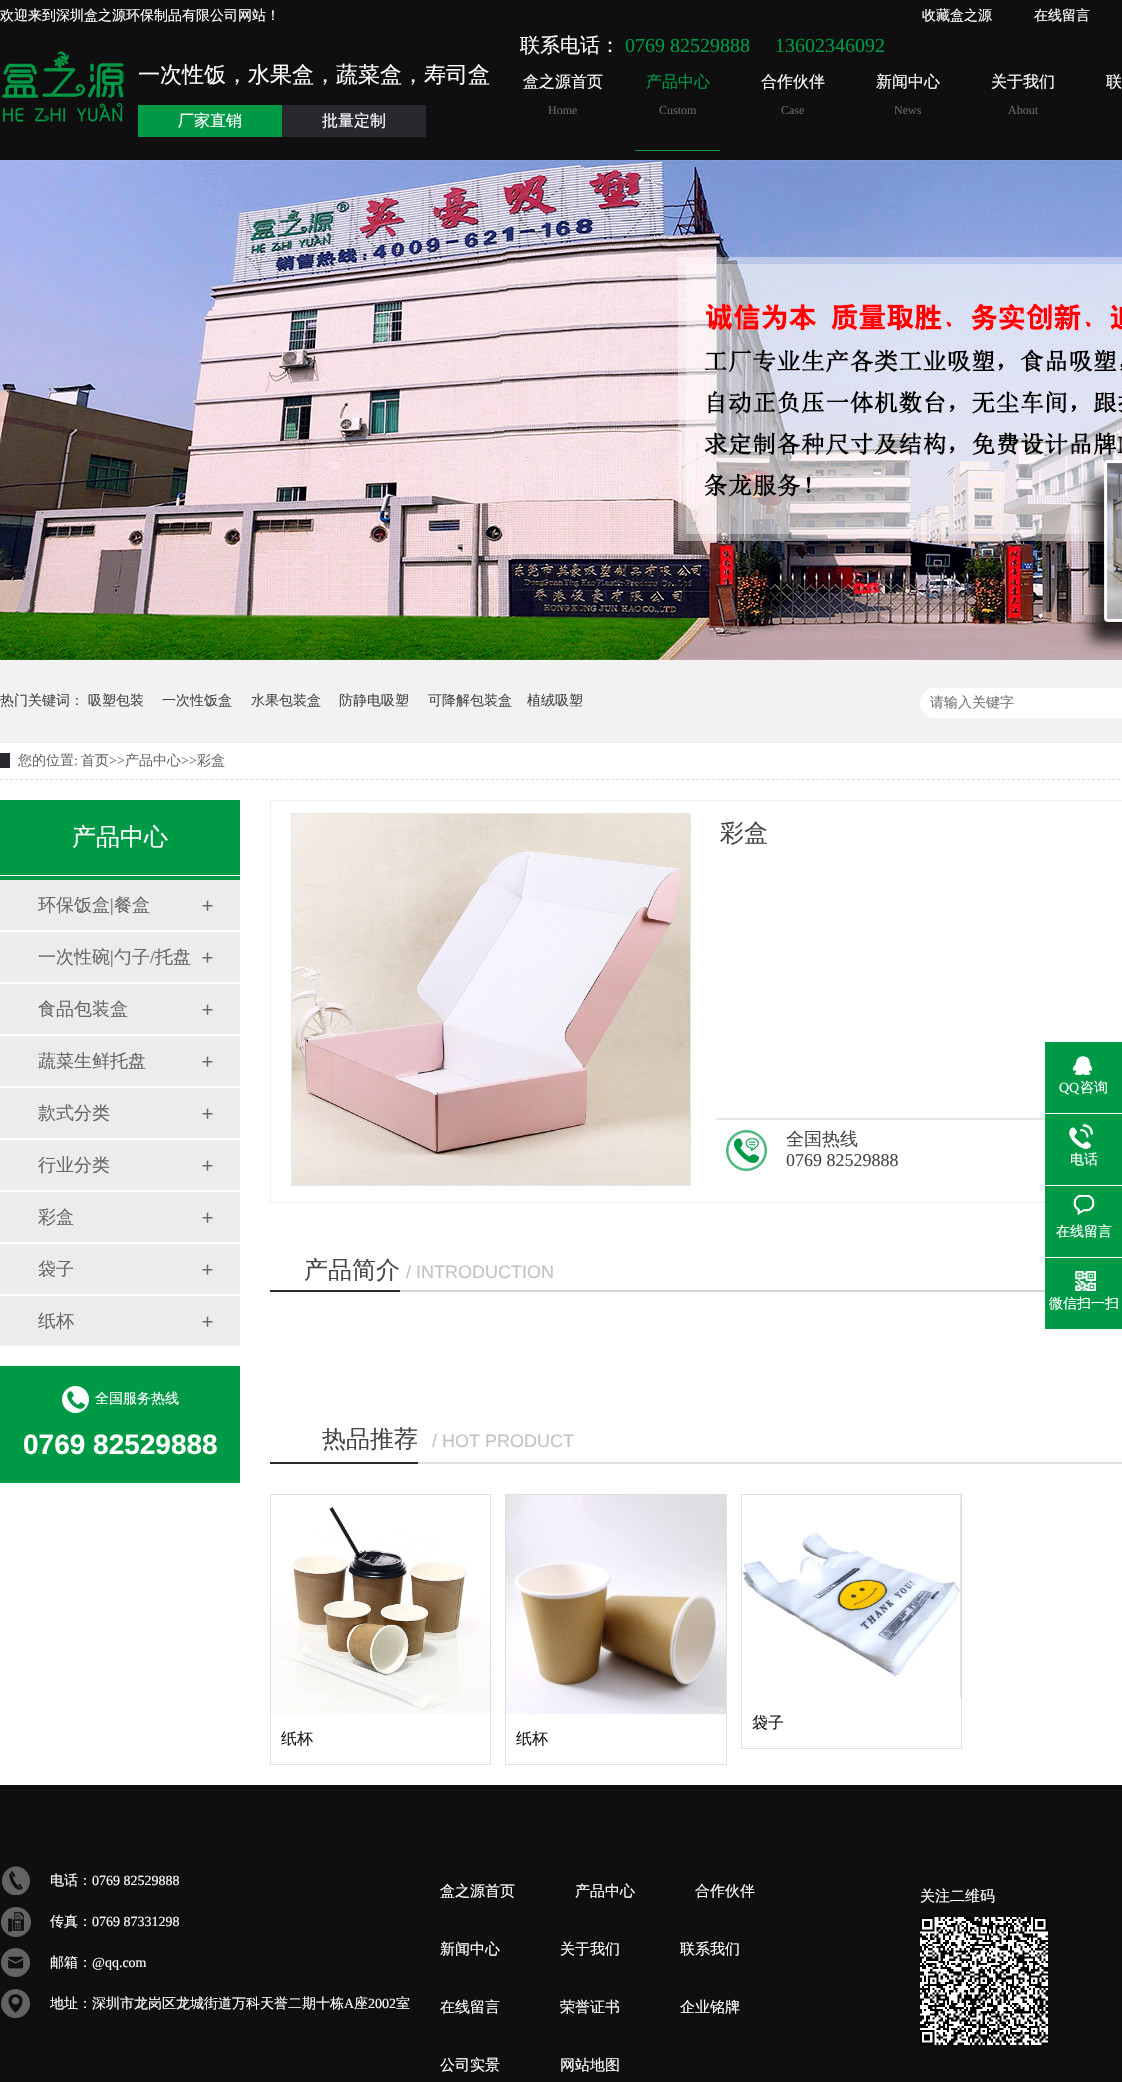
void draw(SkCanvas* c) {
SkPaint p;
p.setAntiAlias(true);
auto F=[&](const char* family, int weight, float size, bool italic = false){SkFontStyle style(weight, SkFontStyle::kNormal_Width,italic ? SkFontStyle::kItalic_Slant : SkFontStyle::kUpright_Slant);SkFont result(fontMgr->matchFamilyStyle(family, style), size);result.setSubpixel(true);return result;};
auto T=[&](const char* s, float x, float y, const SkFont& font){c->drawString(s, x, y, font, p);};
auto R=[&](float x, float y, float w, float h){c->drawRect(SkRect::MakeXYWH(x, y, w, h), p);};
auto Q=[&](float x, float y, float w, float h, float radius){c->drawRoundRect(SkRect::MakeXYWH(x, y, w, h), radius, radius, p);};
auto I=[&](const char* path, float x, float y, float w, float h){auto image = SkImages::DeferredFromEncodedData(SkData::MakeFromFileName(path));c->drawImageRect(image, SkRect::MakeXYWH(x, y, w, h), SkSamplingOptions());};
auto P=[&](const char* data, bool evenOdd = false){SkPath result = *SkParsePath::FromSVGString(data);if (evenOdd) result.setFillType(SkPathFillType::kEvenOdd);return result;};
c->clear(0xffffffff);
p.setColor(0xff0f0f0f);
R(0,0,1122,160);
auto f1 = F("WenQuanYi Zen Hei",500,14);
p.setColor(0xffffffff);
T("欢迎来到深圳盒之源环保制品有限公司网站！",0,20,f1);
T("收藏盒之源",922,20,f1);
T("在线留言",1034,20,f1);
I("1.png",2,51,122,71);
auto f2 = F("WenQuanYi Zen Hei",500,22);
T("一次性饭，水果盒，蔬菜盒，寿司盒",138,82,f2);
p.setColor(0xff009946);
R(138,105,144,32);
auto f3 = F("WenQuanYi Zen Hei",500,16);
p.setColor(0xffffffff);
T("厂家直销",178,126,f3);
p.setColor(0xff28292e);
R(282,105,144,32);
p.setColor(0xffffffff);
T("批量定制",322,126,f3);
auto f4 = F("WenQuanYi Zen Hei",500,20);
T("联系电话：",520,52,f4);
auto f5 = F("Liberation Serif",400,20);
p.setColor(0xff009946);
T("0769 82529888",625,52,f5);
T("13602346092",775,52,f5);
p.setColor(0xffffffff);
T("盒之源首页",523,87,f3);
auto f6 = F("Liberation Serif",400,12);
p.setColor(0xff696767);
T("Home",548,114,f6);
p.setColor(0xff009946);
R(635,150,85,1);
T("产品中心",646,87,f3);
p.setColor(0xff696767);
T("Custom",659,114,f6);
p.setColor(0xffffffff);
T("合作伙伴",761,87,f3);
p.setColor(0xff696767);
T("Case",781,114,f6);
p.setColor(0xffffffff);
T("新闻中心",876,87,f3);
p.setColor(0xff696767);
T("News",894,114,f6);
p.setColor(0xffffffff);
T("关于我们",991,87,f3);
p.setColor(0xff696767);
T("About",1008,114,f6);
p.setColor(0xffffffff);
T("联",1106,87,f3);
I("2.png",0,160,1122,500);
p.setColor(0xfff2f2f2);
R(0,660,1122,82);
p.setColor(0xffeeeeee);
R(0,742,1122,1);
p.setColor(0xff464646);
T("热门关键词：",0,705,f1);
T("吸塑包装",88,705,f1);
T("一次性饭盒",162,705,f1);
T("水果包装盒",251,705,f1);
T("防静电吸塑",339,705,f1);
T("可降解包装盒",428,705,f1);
T("植绒吸塑",527,705,f1);
p.setColor(0xffffffff);
Q(920,688,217,30,15);
R(930,688,3,30);
p.setColor(0xff757575);
T("请输入关键字",930,707,f1);
p.setStroke(true);
p.setStrokeWidth(1);
p.setColor(0xffdcdcdc);
p.setPathEffect(SkDashPathEffect::Make({{3,2.01f}}, 0));
c->drawPath(P("M0 779.5h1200"),p);
p.setPathEffect(nullptr);
p.setStroke(false);
p.setColor(0xff696767);
T("您的位置",18,765,f1);
p.setColor(0xff28292e);
R(0,753,10,15);
auto f7 = F("Liberation Serif",400,14);
p.setColor(0xff696767);
T(":",74,765,f7);
T("首页",81,765,f1);
T(">>",109,765,f7);
T("产品中心",125,765,f1);
T(">>",181,765,f7);
T("彩盒",197,765,f1);
p.setColor(0xff009946);
R(0,800,240,80);
p.setColor(0xffffffff);
R(0,875,240,1);
auto f8 = F("WenQuanYi Zen Hei",500,24);
T("产品中心",72,845,f8);
p.setColor(0xffececeb);
R(0,880,240,50);
I("3.png",202,900,11,11);
auto f9 = F("WenQuanYi Zen Hei",500,18);
p.setColor(0xff696767);
T("环保饭盒",38,911,f9);
auto f10 = F("Liberation Serif",400,18);
T("|",110,911,f10);
T("餐盒",114,911,f9);
p.setColor(0xffececeb);
R(0,932,240,50);
I("3.png",202,952,11,11);
p.setColor(0xff696767);
T("一次性碗",38,963,f9);
T("|",110,963,f10);
T("勺子",114,963,f9);
T("/",150,963,f10);
T("托盘",155,963,f9);
p.setColor(0xffececeb);
R(0,984,240,50);
I("3.png",202,1004,11,11);
p.setColor(0xff696767);
T("食品包装盒",38,1015,f9);
p.setColor(0xffececeb);
R(0,1036,240,50);
I("3.png",202,1056,11,11);
p.setColor(0xff696767);
T("蔬菜生鲜托盘",38,1067,f9);
p.setColor(0xffececeb);
R(0,1088,240,50);
I("3.png",202,1108,11,11);
p.setColor(0xff696767);
T("款式分类",38,1119,f9);
p.setColor(0xffececeb);
R(0,1140,240,50);
I("3.png",202,1160,11,11);
p.setColor(0xff696767);
T("行业分类",38,1171,f9);
p.setColor(0xffececeb);
R(0,1192,240,50);
I("3.png",202,1212,11,11);
p.setColor(0xff696767);
T("彩盒",38,1223,f9);
p.setColor(0xffececeb);
R(0,1244,240,50);
I("3.png",202,1264,11,11);
p.setColor(0xff696767);
T("袋子",38,1275,f9);
p.setColor(0xffececeb);
R(0,1296,240,50);
I("3.png",202,1316,11,11);
p.setColor(0xff696767);
T("纸杯",38,1327,f9);
p.setColor(0xff009946);
R(0,1366,240,117);
I("4.png",62,1386,27,27);
p.setColor(0xffffffff);
T("全国服务热线",95,1403,f1);
auto f11 = F("Liberation Sans",700,28);
T("0769 82529888",23,1454,f11);
p.setStroke(true);
p.setColor(0xffeeeeee);
c->drawRect(SkRect::MakeXYWH(270.5,800.5,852,402),p);
p.setColor(0xffe7e7e7);
c->drawRect(SkRect::MakeXYWH(291.5,813.5,399,372),p);
I("5.png",292,814,398,371);
p.setStroke(false);
p.setColor(0xff464646);
T("彩盒",720,841,f8);
p.setColor(0xffe6e6e6);
R(716,1118,329,2);
I("6.png",726,1130,41,41);
p.setColor(0xff464646);
T("全国热线",786,1145,f9);
T("0769 82529888",786,1166,f10);
p.setColor(0xffd4d4d4);
R(400,1290,645,2);
p.setColor(0xff28292e);
R(270,1290,130,2);
p.setColor(0xff464646);
T("产品简介",304,1278,f8);
auto f12 = F("Liberation Sans",400,18);
p.setColor(0xffc2c2c1);
T("/ INTRODUCTION",406,1278,f12);
p.setColor(0xffdfdfdf);
R(418,1462,704,2);
p.setColor(0xff28292e);
R(270,1462,148,2);
p.setColor(0xff464646);
T("热品推荐",322,1447,f8);
p.setColor(0xffc2c2c1);
T("/ HOT PRODUCT",432,1447,f12);
p.setStroke(true);
p.setColor(0xffdfdfdf);
c->drawRect(SkRect::MakeXYWH(741.5,1494.5,220,254),p);
I("7.png",742,1495,219,203);
p.setStroke(false);
p.setColor(0xff191919);
T("袋子",752,1728,f3);
p.setStroke(true);
p.setColor(0xffdfdfdf);
c->drawRect(SkRect::MakeXYWH(270.5,1494.5,220,270),p);
I("8.png",271,1507,219,207);
p.setStroke(false);
p.setColor(0xff191919);
T("纸杯",281,1744,f3);
p.setStroke(true);
p.setColor(0xffdfdfdf);
c->drawRect(SkRect::MakeXYWH(505.5,1494.5,221,270),p);
I("9.png",506,1495,220,219);
p.setStroke(false);
p.setColor(0xff191919);
T("纸杯",516,1744,f3);
p.setColor(0xff009946);
R(1045,1042,77,71);
I("10.png",1073,1056,19,19);
p.setColor(0xffffffff);
T("QQ",1059,1092,f7);
T("咨询",1080,1092,f1);
p.setColor(0xff009946);
R(1045,1114,77,71);
I("11.png",1069,1124,24,25);
p.setColor(0xffffffff);
T("电话",1070,1164,f1);
p.setColor(0xff009946);
R(1045,1186,77,71);
I("12.png",1073,1195,22,21);
p.setColor(0xffffffff);
T("在线留言",1056,1236,f1);
p.setColor(0xff009946);
R(1045,1258,77,71);
I("13.png",1075,1271,21,20);
p.setColor(0xffffffff);
T("微信扫一扫",1049,1308,f1);
p.setColor(0xff0f0f0f);
R(0,1785,1122,297);
I("14.png",2,1866,28,31);
p.setColor(0xffffffff);
T("电话：",50,1885,f1);
T("0769 82529888",92,1885,f7);
I("15.png",1,1906,30,32);
T("传真：",50,1926,f1);
T("0769 87331298",92,1926,f7);
I("16.png",1,1948,30,30);
T("邮箱：",50,1967,f1);
T("@qq.com",92,1967,f7);
I("17.png",1,1989,29,29);
T("地址：深圳市龙岗区龙城街道万科天誉二期十栋",50,2008,f1);
T("A",344,2008,f7);
T("座",354,2008,f1);
T("2002",368,2008,f7);
T("室",396,2008,f1);
auto f13 = F("WenQuanYi Zen Hei",500,15);
T("盒之源首页",440,1896,f13);
T("产品中心",575,1896,f13);
T("合作伙伴",695,1896,f13);
T("新闻中心",440,1954,f13);
T("关于我们",560,1954,f13);
T("联系我们",680,1954,f13);
T("在线留言",440,2012,f13);
T("荣誉证书",560,2012,f13);
T("企业铭牌",680,2012,f13);
T("公司实景",440,2070,f13);
T("网站地图",560,2070,f13);
T("关注二维码",920,1901,f13);
I("18.png",920,1917,128,128);
}
